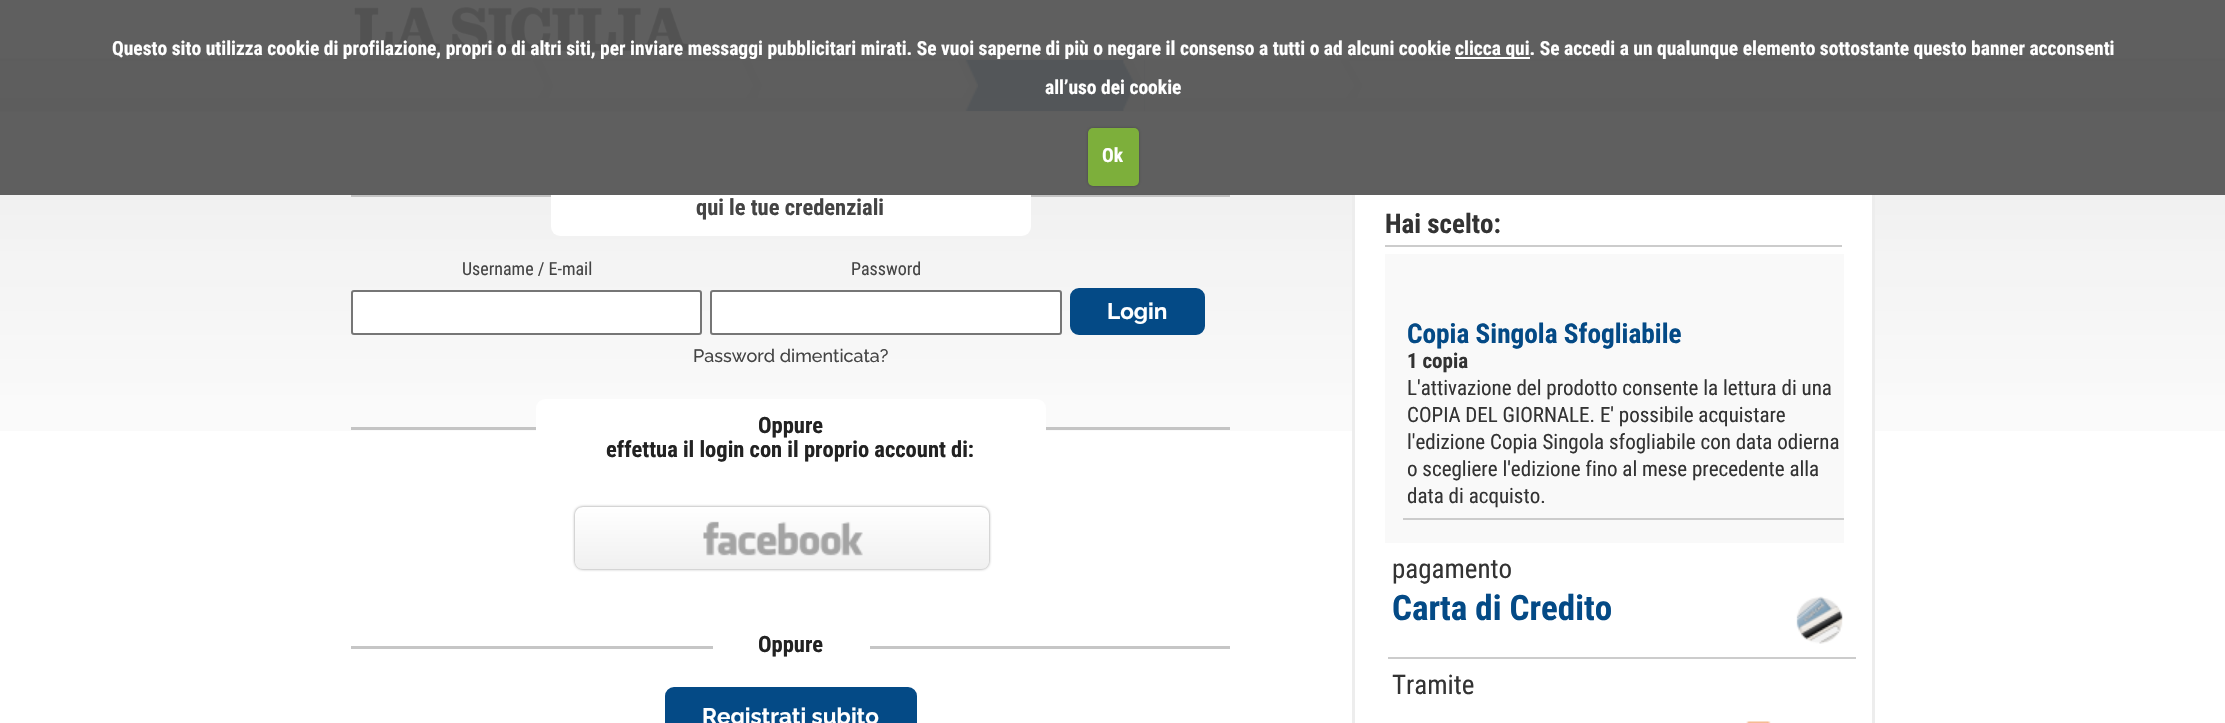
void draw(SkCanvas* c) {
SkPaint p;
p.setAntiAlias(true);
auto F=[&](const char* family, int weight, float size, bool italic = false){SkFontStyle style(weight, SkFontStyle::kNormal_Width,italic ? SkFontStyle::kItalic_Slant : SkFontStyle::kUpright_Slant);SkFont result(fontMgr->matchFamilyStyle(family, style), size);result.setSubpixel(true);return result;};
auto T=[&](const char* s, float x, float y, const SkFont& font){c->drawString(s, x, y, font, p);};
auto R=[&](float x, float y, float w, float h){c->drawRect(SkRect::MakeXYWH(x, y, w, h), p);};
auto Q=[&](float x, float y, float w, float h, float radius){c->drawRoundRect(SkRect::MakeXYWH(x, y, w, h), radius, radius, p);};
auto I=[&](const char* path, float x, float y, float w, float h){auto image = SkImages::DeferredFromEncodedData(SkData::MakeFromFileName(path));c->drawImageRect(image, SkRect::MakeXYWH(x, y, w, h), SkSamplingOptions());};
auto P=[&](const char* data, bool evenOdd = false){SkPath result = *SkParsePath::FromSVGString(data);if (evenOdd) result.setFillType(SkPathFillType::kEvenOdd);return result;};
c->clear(0xffffffff);
I("1.png",354,7,335,46);
I("8.png",0,58,2225,373);
I("2.png",0,58,2225,54);
p.setColor(0xffcccccc);
R(0,59,2225,2);
I("3.png",531,60,23,51);
I("4.png",739,60,23,51);
p.setColor(0xff044a86);
R(965,60,180,51);
I("5.png",955,60,23,51);
I("6.png",1123,60,22,51);
I("7.png",1144,60,218,51);
p.setColor(0xffc3c3c3);
R(351,194,879,3);
p.setColor(0xffffffff);
Q(551,158,480,78,9);
c->drawRoundRect(SkRect::MakeXYWH(1353.5,174.5,520,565),13.5,13.5,p);
p.setStroke(true);
p.setStrokeWidth(3);
p.setColor(0xffededed);
c->drawRoundRect(SkRect::MakeXYWH(1353.5,174.5,520,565),13.5,13.5,p);
p.setStroke(false);
p.setColor(0xf2565656);
R(0,0,2225,195);
auto f1 = F("Roboto Condensed",700,19.5);
p.setColor(0xffffffff);
T("Questo sito utilizza cookie di profilazione, propri o di altri siti, per inviare messaggi pubblicitari mirati. Se vuoi saperne di più o negare il consenso a tutti o ad alcuni cookie",112,55,f1);
R(1455,57,75,2);
T("clicca qui. Se accedi a un qualunque elemento sottostante questo banner acconsenti",1455,55,f1);
T("all’uso dei cookie",1045,94,f1);
p.setColor(0x40000000);
p.setMaskFilter(SkMaskFilter::MakeBlur(kNormal_SkBlurStyle, 1.5));
c->drawRoundRect(SkRect::MakeXYWH(1088,128,51,58),5,5,p);
p.setMaskFilter(nullptr);
p.setColor(0xff7daf3b);
Q(1088,128,51,58,5);
p.setColor(0xffffffff);
T("Ok",1102,162,f1);
auto f2 = F("Roboto Condensed",700,22.5);
p.setColor(0xff444444);
T("qui le tue credenziali",696,215,f2);
auto f3 = F("Roboto Condensed",400,18);
T("Username / E-mail",462,275,f3);
p.setColor(0xffffffff);
c->drawRoundRect(SkRect::MakeXYWH(352,291,349,43),2,2,p);
p.setStroke(true);
p.setStrokeWidth(2);
p.setColor(0xff767676);
c->drawRoundRect(SkRect::MakeXYWH(352,291,349,43),2,2,p);
p.setStroke(false);
p.setColor(0xff444444);
T("Password",851,275,f3);
p.setColor(0xffffffff);
c->drawRoundRect(SkRect::MakeXYWH(711,291,350,43),2,2,p);
p.setStroke(true);
p.setColor(0xff767676);
c->drawRoundRect(SkRect::MakeXYWH(711,291,350,43),2,2,p);
p.setStroke(false);
p.setColor(0xff044a86);
c->drawRoundRect(SkRect::MakeXYWH(1071,289,133,45),8,8,p);
p.setStroke(true);
c->drawRoundRect(SkRect::MakeXYWH(1071,289,133,45),8,8,p);
auto f4 = F("Raleway",700,22.5);
p.setStroke(false);
p.setColor(0xffffffff);
T("Login",1107,319,f4);
auto f5 = F("Raleway",500,18);
p.setColor(0xff444444);
T("Password dimenticata?",693,362,f5);
p.setColor(0xffc4c4c4);
R(351,427,879,3);
p.setColor(0xffffffff);
Q(536,399,510,78,9);
p.setColor(0xff222222);
T("Oppure",758,433,f2);
T("effettua il login con il proprio account di:",606,457,f2);
c->save();
c->clipPath(P("M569 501h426v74h-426zm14 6h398c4.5 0 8 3.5 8 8v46c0 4.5-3.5 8-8 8h-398c-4.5 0-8-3.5-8-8v-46c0-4.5 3.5-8 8-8z",true),true);
p.setColor(0xff888888);
p.setMaskFilter(SkMaskFilter::MakeBlur(kNormal_SkBlurStyle, 1.5));
c->drawRoundRect(SkRect::MakeXYWH(575,507,414,62),8,8,p);
p.setMaskFilter(nullptr);
c->restore();
{
const SkColor colors[] = {0x00e8e8e8,0xa6e8e8e8};
const float stops[] = {0,1};
const SkPoint ends[] = {{782,507}, {782,569}};
p.setShader(SkGradientShader::MakeLinear(ends, colors, stops, 2, SkTileMode::kClamp));
p.setAlpha(255);
}
Q(575,507,414,62,8);
I("9.png",703,521,160,35);
p.setShader(nullptr);
p.setColor(0xffc6c6c6);
R(351,646,879,3);
p.setColor(0xffffffff);
Q(713,618,157,54,9);
p.setColor(0xff222222);
T("Oppure",758,652,f2);
p.setColor(0xff044a86);
c->drawRoundRect(SkRect::MakeXYWH(666,688,250,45),8,8,p);
p.setStroke(true);
c->drawRoundRect(SkRect::MakeXYWH(666,688,250,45),8,8,p);
p.setStroke(false);
p.setColor(0xffffffff);
T("Registrati subito",702,724,f4);
p.setColor(0xffcccccc);
R(1385,245,457,2);
auto f6 = F("Roboto Condensed",700,27);
p.setColor(0xff333333);
T("Hai scelto:",1385,233,f6);
p.setColor(0xfff9f9f9);
R(1385,254,459,289);
p.setColor(0xffcccccc);
R(1403,518,441,2);
auto f7 = F("Roboto Condensed",700,27.25);
p.setColor(0xff044a86);
T("Copia Singola Sfogliabile",1407,343,f7);
auto f8 = F("Roboto Condensed",700,21);
p.setColor(0xff333333);
T("1 copia",1407,368,f8);
auto f9 = F("Roboto Condensed",400,21);
T("L'attivazione del prodotto consente la lettura di una",1407,395,f9);
T("COPIA DEL GIORNALE. E' possibile acquistare",1407,422,f9);
T("l'edizione Copia Singola sfogliabile con data odierna",1407,449,f9);
T("o scegliere l'edizione fino al mese precedente alla",1407,476,f9);
T("data di acquisto.",1407,503,f9);
p.setColor(0xffcccccc);
R(1388,657,468,2);
auto f10 = F("Roboto Condensed",400,27);
p.setColor(0xff333333);
T("pagamento",1392,578,f10);
auto f11 = F("Roboto Condensed",700,35);
p.setColor(0xff044a86);
T("Carta di Credito",1392,620,f11);
I("10.png",1796,596,47,48);
p.setColor(0xff333333);
T("Tramite",1392,694,f10);
I("11.png",1746,721,25,2);
}
